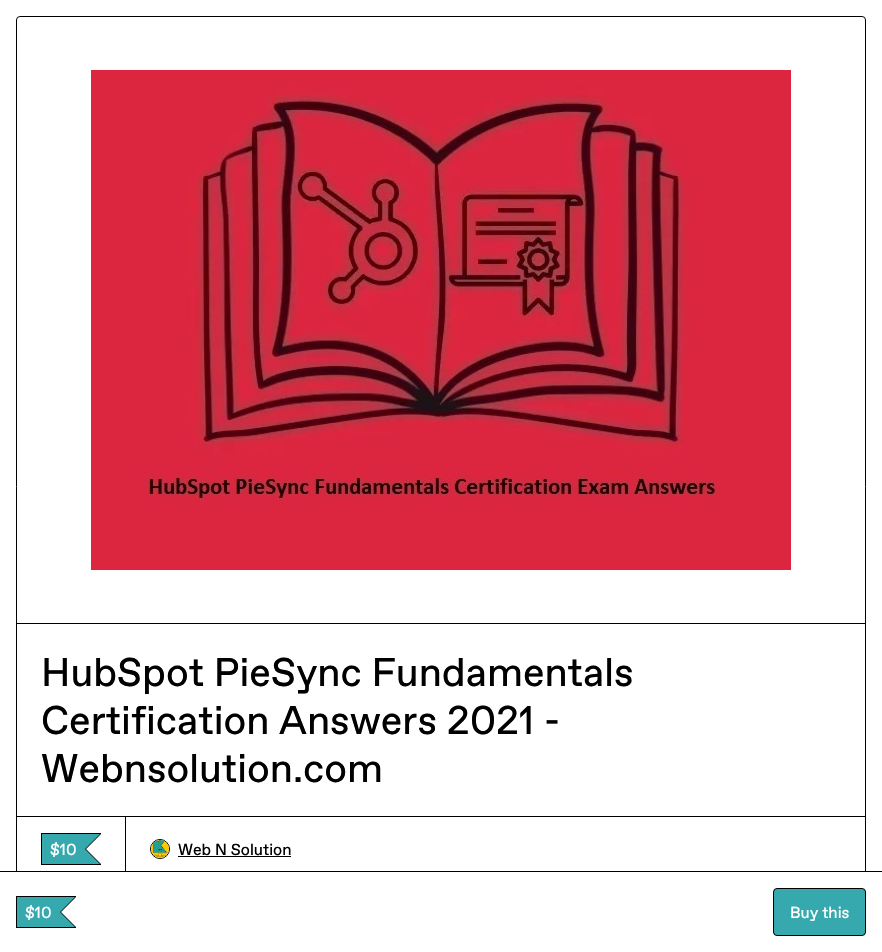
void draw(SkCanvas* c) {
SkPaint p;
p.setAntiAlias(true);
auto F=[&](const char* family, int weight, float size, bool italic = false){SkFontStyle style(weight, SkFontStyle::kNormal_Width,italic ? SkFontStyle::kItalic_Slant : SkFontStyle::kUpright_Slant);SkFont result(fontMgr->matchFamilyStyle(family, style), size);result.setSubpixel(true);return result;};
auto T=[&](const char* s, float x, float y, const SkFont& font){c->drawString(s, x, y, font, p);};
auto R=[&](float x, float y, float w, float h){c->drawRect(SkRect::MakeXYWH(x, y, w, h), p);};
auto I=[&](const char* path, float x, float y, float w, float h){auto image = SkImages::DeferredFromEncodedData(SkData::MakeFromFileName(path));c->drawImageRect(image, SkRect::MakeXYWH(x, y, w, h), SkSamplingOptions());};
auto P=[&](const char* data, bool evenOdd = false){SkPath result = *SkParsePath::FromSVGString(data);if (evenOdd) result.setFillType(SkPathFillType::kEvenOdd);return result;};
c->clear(0xffffffff);
p.setStroke(true);
p.setStrokeWidth(1);
p.setColor(0xff000000);
c->drawRoundRect(SkRect::MakeXYWH(16.5,16.5,849,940),3.5,3.5,p);
p.setStroke(false);
R(17,623,848,1);
I("1.png",91,70,700,500);
auto f1 = F("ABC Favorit",400,40);
T("HubSpot PieSync Fundamentals",41,686,f1);
T("Certification Answers 2021 -",41,734,f1);
T("Webnsolution.com",41,782,f1);
R(126,816,739,1);
p.setStroke(true);
c->drawRect(SkRect::MakeXYWH(16.5,816.5,109,65),p);
p.setStroke(false);
R(41,833,60,1);
R(41,864,60,1);
R(41,833,1,32);
p.setColor(0xff36a9ae);
R(42,834,43,30);
p.setColor(0xff000000);
c->drawPath(P("M85 834h16l-15 15zm16 30h-16l1-15z"),p);
R(85,848,1,2);
p.setColor(0xff36a9ae);
c->drawPath(P("M84 834h16l-15 15zm16 30h-16l1-15z"),p);
auto f2 = F("ABC Favorit",400,16);
p.setColor(0xffffffff);
T("$10",50,855,f2);
p.setStroke(true);
p.setColor(0xff000000);
c->drawCircle(160,849,9.5,p);
I("2.png",151,840,18,18);
p.setStroke(false);
T("Web N Solution",178,855,f2);
R(178,856,113,1);
R(0,871,882,1);
p.setColor(0xffffffff);
R(16,872,850,80);
p.setColor(0xff000000);
R(16,896,60,1);
R(16,927,60,1);
R(16,896,1,32);
p.setColor(0xff36a9ae);
R(17,897,43,30);
p.setColor(0xff000000);
c->drawPath(P("M60 897h16l-15 15zm16 30h-16l1-15z"),p);
R(60,911,1,2);
p.setColor(0xff36a9ae);
c->drawPath(P("M59 897h16l-15 15zm16 30h-16l1-15z"),p);
p.setColor(0xffffffff);
T("$10",25,918,f2);
p.setColor(0xff36a9ae);
c->drawRoundRect(SkRect::MakeXYWH(773.5,888.5,92,47),3.5,3.5,p);
p.setStroke(true);
p.setColor(0xff000000);
c->drawRoundRect(SkRect::MakeXYWH(773.5,888.5,92,47),3.5,3.5,p);
p.setStroke(false);
p.setColor(0xffffffff);
T("Buy this",790,918,f2);
}
